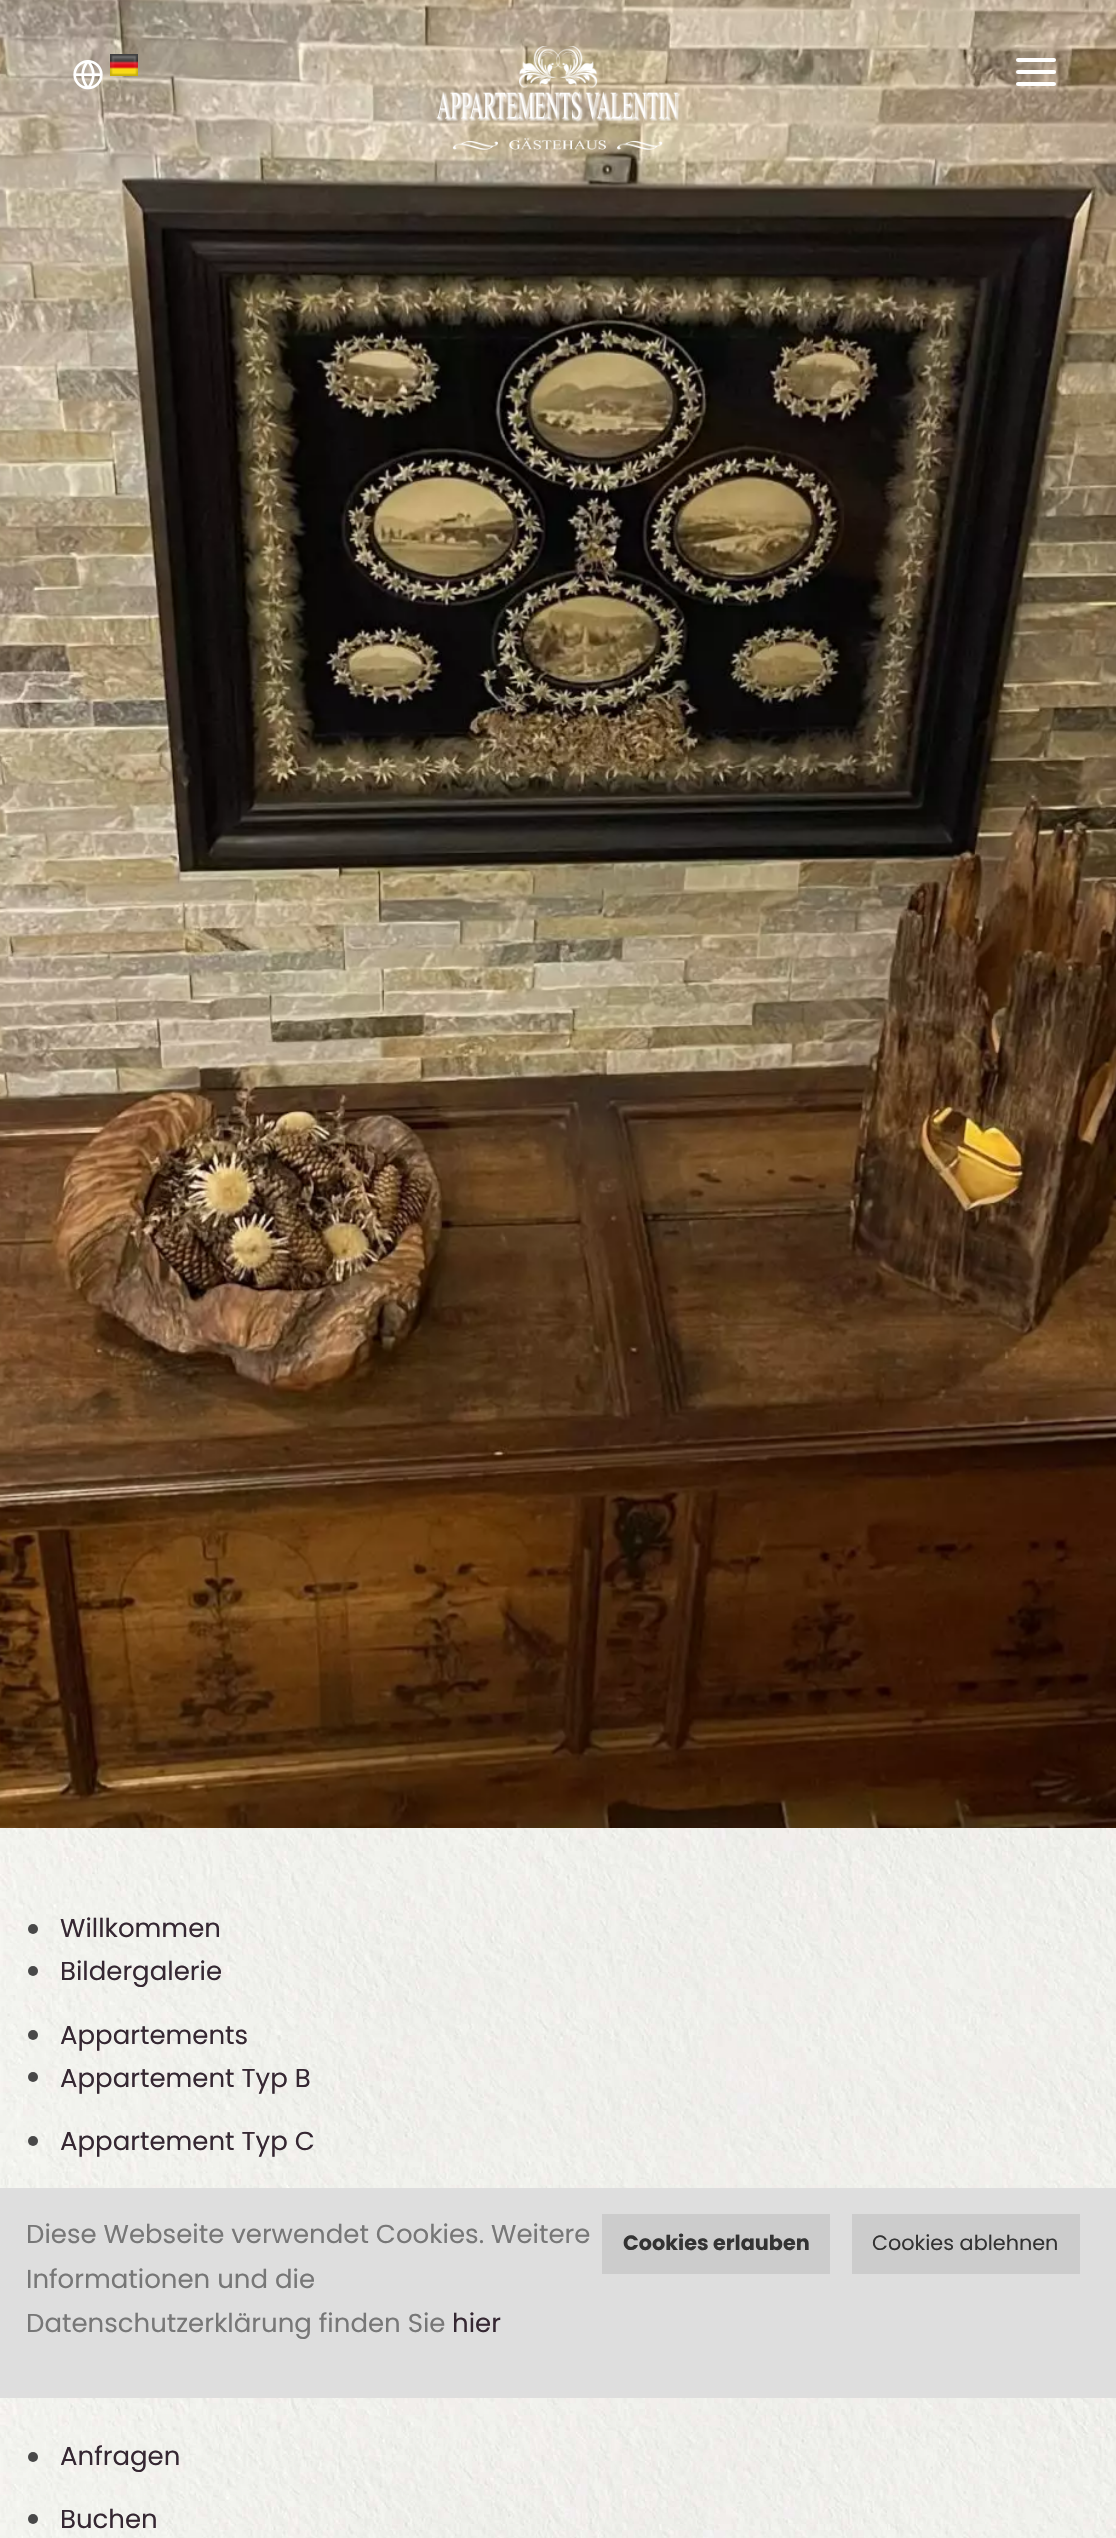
void draw(SkCanvas* c) {
SkPaint p;
p.setAntiAlias(true);
auto F=[&](const char* family, int weight, float size, bool italic = false){SkFontStyle style(weight, SkFontStyle::kNormal_Width,italic ? SkFontStyle::kItalic_Slant : SkFontStyle::kUpright_Slant);SkFont result(fontMgr->matchFamilyStyle(family, style), size);result.setSubpixel(true);return result;};
auto T=[&](const char* s, float x, float y, const SkFont& font){c->drawString(s, x, y, font, p);};
auto R=[&](float x, float y, float w, float h){c->drawRect(SkRect::MakeXYWH(x, y, w, h), p);};
auto Q=[&](float x, float y, float w, float h, float radius){c->drawRoundRect(SkRect::MakeXYWH(x, y, w, h), radius, radius, p);};
auto I=[&](const char* path, float x, float y, float w, float h){auto image = SkImages::DeferredFromEncodedData(SkData::MakeFromFileName(path));c->drawImageRect(image, SkRect::MakeXYWH(x, y, w, h), SkSamplingOptions());};
c->clear(0xffffffff);
I("1.png",0,0,1116,1828);
I("2.png",73,60,30,30);
I("3.png",110,54,28,22);
I("4.png",436,46,244,104);
p.setColor(0xffffffff);
Q(1016,70,40,4,2);
Q(1016,58,40,4,2);
Q(1016,82,40,4,2);
I("5.png",0,1828,1116,710);
p.setColor(0xff484848);
c->drawCircle(33,1929,5,p);
auto f1 = F("Poppins",400,26);
p.setColor(0xff352732);
T("Willkommen",60,1937,f1);
p.setColor(0xff484848);
c->drawCircle(33,1971,5,p);
p.setColor(0xff352732);
T("Bildergalerie",60,1980,f1);
p.setColor(0xff484848);
c->drawCircle(33,2035,5,p);
p.setColor(0xff352732);
T("Appartements",60,2044,f1);
p.setColor(0xff484848);
c->drawCircle(33,2077,5,p);
p.setColor(0xff352732);
T("Appartement Typ B",60,2087,f1);
p.setColor(0xff484848);
c->drawCircle(33,2141,5,p);
p.setColor(0xff352732);
T("Appartement Typ C",60,2150,f1);
p.setColor(0xff484848);
c->drawCircle(33,2457,5,p);
p.setColor(0xff352732);
T("Anfragen",60,2465,f1);
p.setColor(0xff484848);
c->drawCircle(33,2519,5,p);
p.setColor(0xff352732);
T("Buchen",60,2528,f1);
p.setColor(0xffdedede);
R(0,2188,1116,210);
p.setColor(0xff777777);
T("Diese Webseite verwendet Cookies. Weitere",26,2243,f1);
p.setColor(0xffcccccc);
R(602,2214,228,60);
auto f2 = F("Poppins",700,20.75);
p.setColor(0xff333333);
T("Cookies erlauben",623,2250,f2);
p.setColor(0xffcccccc);
R(852,2214,228,60);
auto f3 = F("Poppins",400,20.75);
p.setColor(0xff333333);
T("Cookies ablehnen",872,2250,f3);
p.setColor(0xff777777);
T("Informationen und die",26,2288,f1);
T("Datenschutzerklärung finden Sie",26,2332,f1);
p.setColor(0xff352732);
T("hier",452,2332,f1);
}
